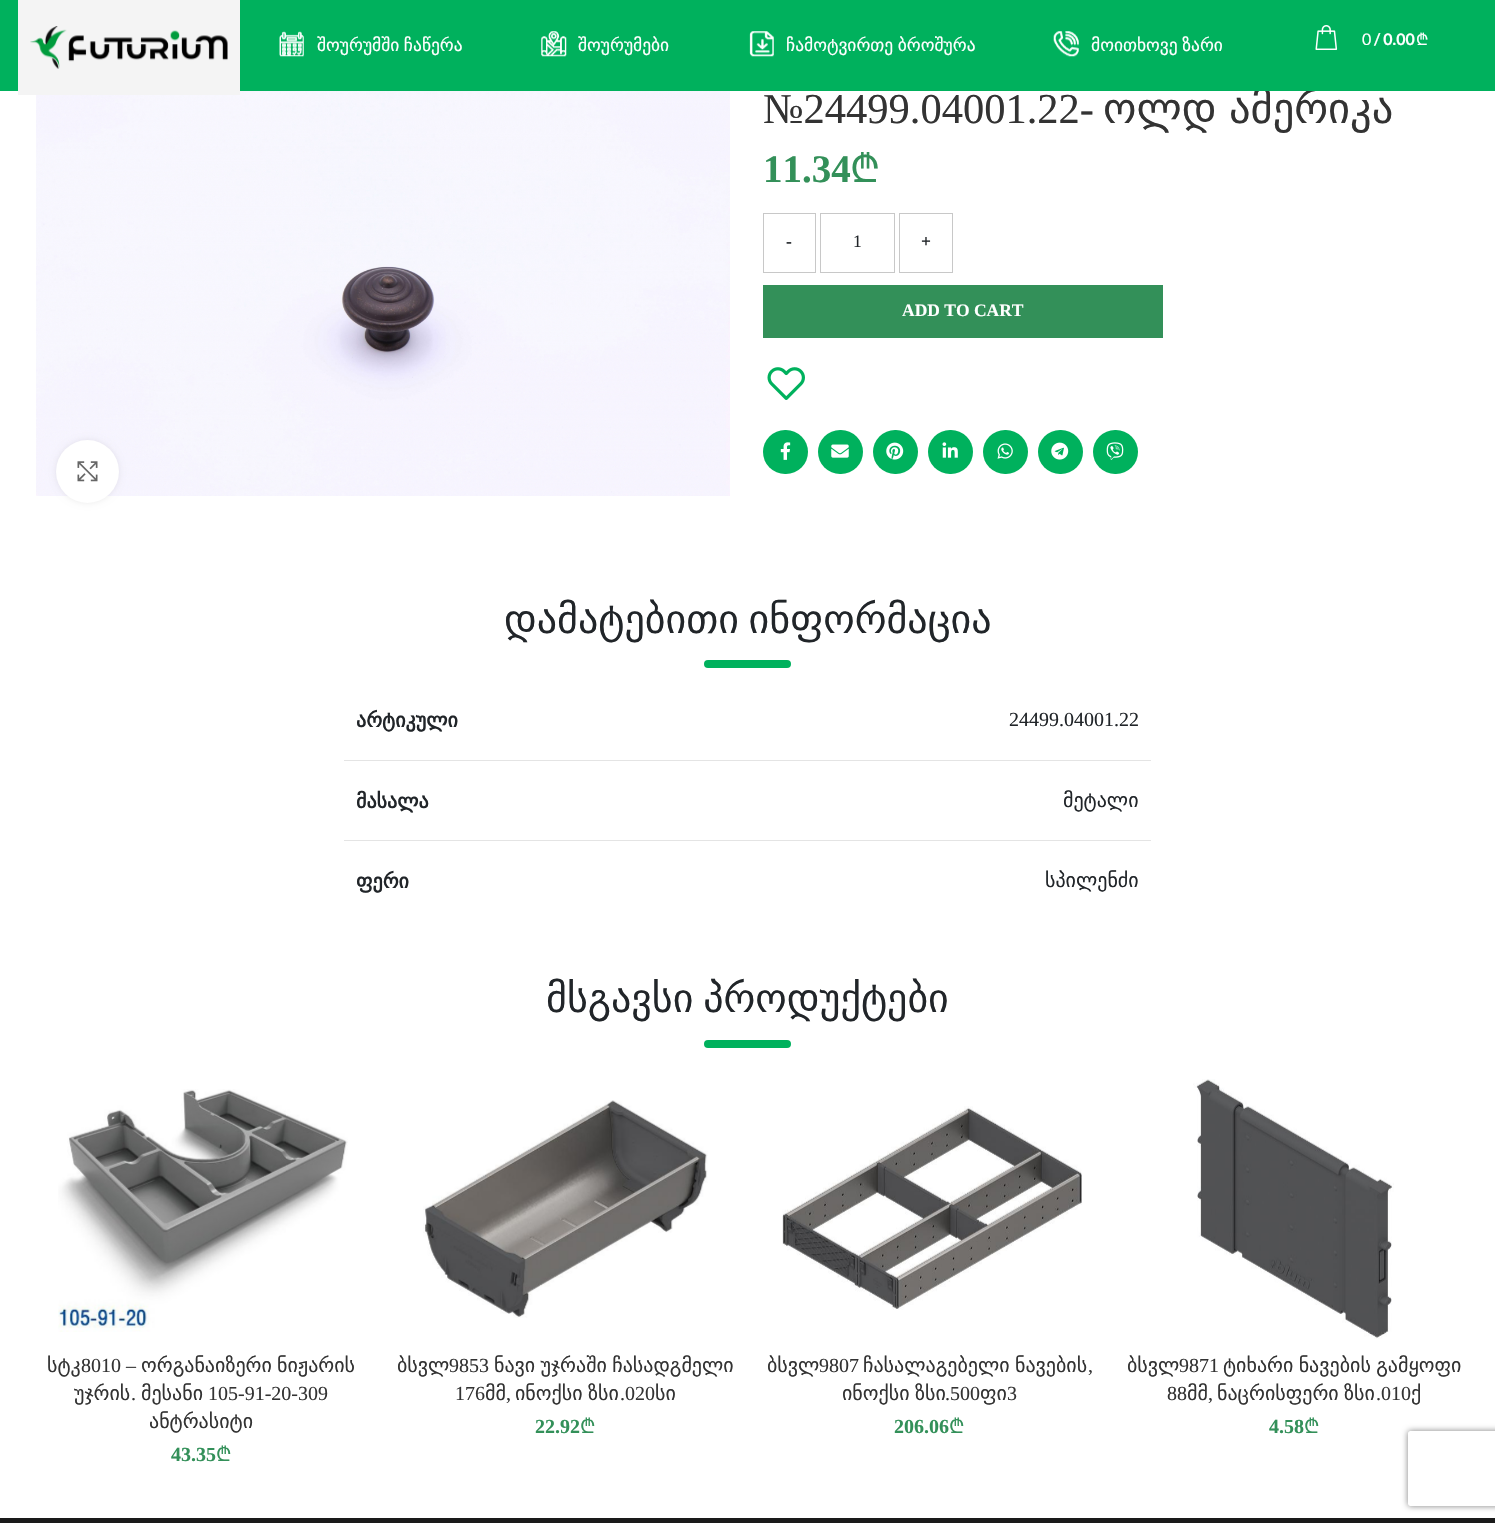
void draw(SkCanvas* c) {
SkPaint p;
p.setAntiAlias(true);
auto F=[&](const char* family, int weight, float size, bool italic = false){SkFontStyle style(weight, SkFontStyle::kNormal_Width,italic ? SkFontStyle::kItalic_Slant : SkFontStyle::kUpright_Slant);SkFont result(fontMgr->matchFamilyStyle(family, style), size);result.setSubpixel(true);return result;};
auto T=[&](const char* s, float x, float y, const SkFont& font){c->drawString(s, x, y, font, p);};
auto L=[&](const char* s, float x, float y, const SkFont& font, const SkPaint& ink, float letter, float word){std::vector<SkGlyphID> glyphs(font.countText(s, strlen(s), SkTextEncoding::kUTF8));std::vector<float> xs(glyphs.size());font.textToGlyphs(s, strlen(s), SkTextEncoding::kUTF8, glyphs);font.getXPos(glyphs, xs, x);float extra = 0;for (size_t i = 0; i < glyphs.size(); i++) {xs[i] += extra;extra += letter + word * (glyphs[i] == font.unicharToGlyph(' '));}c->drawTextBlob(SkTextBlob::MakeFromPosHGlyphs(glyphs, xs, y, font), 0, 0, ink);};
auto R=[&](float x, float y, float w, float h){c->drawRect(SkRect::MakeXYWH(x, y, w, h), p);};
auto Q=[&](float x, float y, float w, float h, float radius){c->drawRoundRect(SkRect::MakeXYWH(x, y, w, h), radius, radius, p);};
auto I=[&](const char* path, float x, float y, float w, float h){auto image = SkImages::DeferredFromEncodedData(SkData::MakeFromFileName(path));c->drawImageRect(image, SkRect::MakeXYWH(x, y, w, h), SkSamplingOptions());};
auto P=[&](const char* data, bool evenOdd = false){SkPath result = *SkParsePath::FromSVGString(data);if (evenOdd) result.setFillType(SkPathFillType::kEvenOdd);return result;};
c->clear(0xffffffff);
auto f1 = F("DejaVu Sans",400,42.5);
p.setColor(0xff333333);
L("ოლდ ამერიკა",1103,123,f1,p,0,-1);
p.setColor(0xff00b15d);
R(0,0,1495,91);
I("7.png",36,91,694,405);
p.setColor(0xfff4f4f4);
R(18,0,222,95);
I("1.png",30,26,198,43);
I("2.png",279,31,25,26);
auto f2 = F("DejaVu Sans",400,17.5);
p.setColor(0xffffffff);
L("შოურუმში ჩაწერა",317,51,f2,p,0,-1);
I("3.png",541,31,26,26);
T("შოურუმები",578,51,f2);
I("4.png",749,31,25,26);
L("ჩამოტვირთე ბროშურა",786,51,f2,p,0,-1);
I("5.png",1053,31,26,26);
L("მოითხოვე ზარი",1091,51,f2,p,0,-1);
I("6.png",1315,25,23,25);
auto f3 = F("Lato",400,16);
T("0",1362,45,f3);
auto f4 = F("Lato",700,16);
T("/ 0.00",1374,45,f4);
auto f5 = F("Noto Sans",400,16);
T("₾",1416,45,f5);
p.setColor(0x14000000);
p.setMaskFilter(SkMaskFilter::MakeBlur(kNormal_SkBlurStyle, 3));
c->drawRoundRect(SkRect::MakeXYWH(56,440,63,63),31.5,31.5,p);
p.setMaskFilter(nullptr);
p.setColor(0xffffffff);
c->drawCircle(87.5,471.5,31.5,p);
I("8.png",77,461,21,21);
auto f6 = F("Liberation Serif",400,42.5);
p.setColor(0xff333333);
T("№24499.04001.22-",763,123,f6);
auto f7 = F("Liberation Serif",700,39);
p.setColor(0xff339059);
T("11.34",763,182,f7);
auto f8 = F("Noto Sans",400,39);
T("₾",850,182,f8);
p.setStroke(true);
p.setStrokeWidth(1);
p.setColor(0xffc8c8c8);
c->drawRect(SkRect::MakeXYWH(763.5,213.5,52,59),p);
auto f9 = F("Liberation Serif",700,17.5);
p.setStroke(false);
p.setColor(0xff212529);
T("-",786,247,f9);
p.setStroke(true);
p.setColor(0xffc8c8c8);
c->drawRect(SkRect::MakeXYWH(820.5,213.5,74,59),p);
auto f10 = F("Liberation Serif",400,17.5);
p.setStroke(false);
p.setColor(0xff212529);
T("1",853,247,f10);
p.setStroke(true);
p.setColor(0xffc8c8c8);
c->drawRect(SkRect::MakeXYWH(899.5,213.5,53,59),p);
p.setStroke(false);
p.setColor(0xff212529);
T("+",921,247,f9);
p.setColor(0xff339059);
R(763,285,400,53);
p.setColor(0xffffffff);
T("ADD TO CART",902,316,f9);
I("9.png",767,367,38,33);
p.setColor(0xff00b15d);
Q(763,430,45,44,22);
I("10.png",780,442,11,18);
Q(818,430,45,44,22);
I("11.png",831,444,18,14);
Q(873,430,45,44,22);
I("12.png",886,442,18,18);
Q(928,430,45,44,22);
I("13.png",942,442,16,16);
Q(983,430,45,44,22);
I("14.png",997,443,16,16);
Q(1038,430,45,44,22);
I("15.png",1051,442,18,18);
Q(1093,430,45,44,22);
I("16.png",1106,442,18,18);
auto f11 = F("DejaVu Sans",400,40);
p.setColor(0xff212529);
L("დამატებითი ინფორმაცია",504,633,f11,p,0,-3);
p.setColor(0xff00b15d);
Q(704,660,87,8,4);
p.setColor(0xffe4e4e4);
R(344,760,807,1);
auto f12 = F("DejaVu Sans",700,20);
p.setColor(0xff212529);
T("არტიკული",356,727,f12);
auto f13 = F("Liberation Serif",400,20);
T("24499.04001.22",1009,726,f13);
p.setColor(0xffe4e4e4);
R(344,840,807,1);
p.setColor(0xff212529);
T("მასალა",356,808,f12);
auto f14 = F("DejaVu Sans",400,20);
T("მეტალი",1063,807,f14);
T("ფერი",356,888,f12);
T("სპილენძი",1045,887,f14);
L("მსგავსი პროდუქტები",546,1012,f11,p,0,-3);
p.setColor(0xff00b15d);
Q(704,1040,87,8,4);
I("17.png",58,1089,290,243);
p.setColor(0xff333333);
T("სტკ",47,1372,f14);
T("8010 –",81,1372,f13);
T("ორგანაიზერი",141,1372,f14);
T("ნიჟარის",277,1372,f14);
T("უჯრის",74,1400,f14);
T(".",131,1400,f13);
T("მესანი",141,1400,f14);
T("105-91-20-309",208,1400,f13);
T("ანტრასიტი",149,1428,f14);
auto f15 = F("Liberation Serif",700,20);
p.setColor(0xff339059);
T("43.35",171,1461,f15);
auto f16 = F("Noto Sans",400,20);
T("₾",216,1461,f16);
I("18.png",423,1100,285,218);
p.setColor(0xff333333);
T("ბსვლ",397,1372,f14);
T("9853",449,1372,f13);
L("ნავი უჯრაში ჩასადგმელი",494,1372,f14,p,0,-1);
T("176",455,1400,f13);
T("მმ",485,1400,f14);
T(",",506,1400,f13);
L("ინოქსი ზსი",515,1400,f14,p,0,-1);
T(".020",620,1400,f13);
T("სი",655,1400,f14);
p.setColor(0xff339059);
T("22.92",535,1433,f15);
T("₾",580,1433,f16);
I("19.png",782,1106,300,204);
p.setColor(0xff333333);
T("ბსვლ",767,1372,f14);
T("9807",819,1372,f13);
L("ჩასალაგებელი ნავების",863,1372,f14,p,0,-1);
T(",",1088,1372,f13);
L("ინოქსი ზსი",842,1400,f14,p,0,-1);
T(".500",945,1400,f13);
T("ფი",980,1400,f14);
T("3",1007,1400,f13);
p.setColor(0xff339059);
T("206.06",894,1433,f15);
T("₾",949,1433,f16);
I("20.png",1193,1079,201,260);
p.setColor(0xff333333);
T("ბსვლ",1127,1372,f14);
T("9871",1179,1372,f13);
L("ტიხარი ნავების გამყოფი",1223,1372,f14,p,0,-1);
T("88",1167,1400,f13);
T("მმ",1187,1400,f14);
T(",",1208,1400,f13);
L("ნაცრისფერი ზსი",1217,1400,f14,p,0,-1);
T(".010",1376,1400,f13);
T("ქ",1411,1400,f14);
p.setColor(0xff339059);
T("4.58",1269,1433,f15);
T("₾",1304,1433,f16);
c->save();
c->clipPath(P("M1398 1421h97v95h-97zm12.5 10h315c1.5 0 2.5 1 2.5 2.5v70c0 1.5-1 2.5-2.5 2.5h-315c-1.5 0-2.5-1-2.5-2.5v-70c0-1.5 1-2.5 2.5-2.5z",true),true);
p.setColor(0xff808080);
p.setMaskFilter(SkMaskFilter::MakeBlur(kNormal_SkBlurStyle, 3));
c->drawRoundRect(SkRect::MakeXYWH(1408,1431,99,75),2.5,2.5,p);
p.setMaskFilter(nullptr);
c->restore();
p.setColor(0xff1a1a1a);
R(0,1518,1495,5);
}
